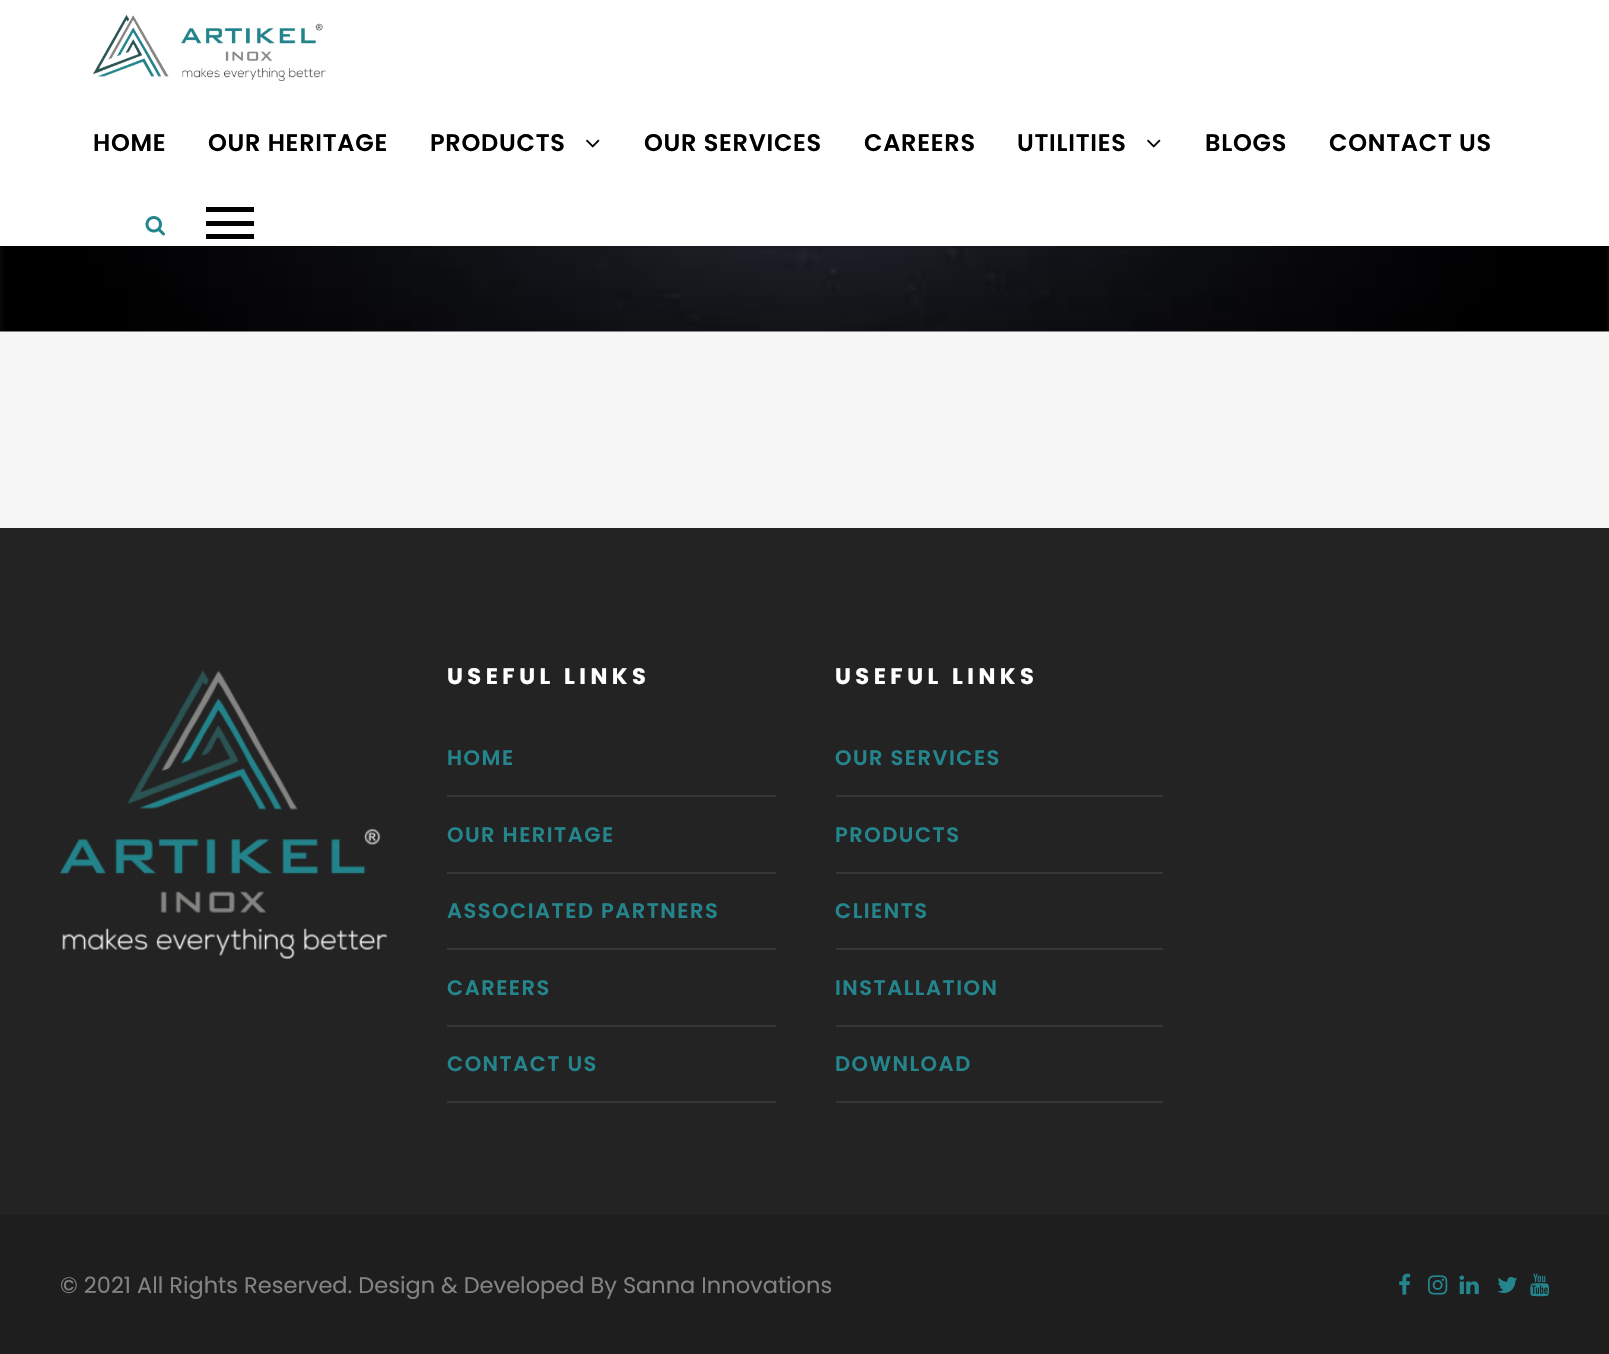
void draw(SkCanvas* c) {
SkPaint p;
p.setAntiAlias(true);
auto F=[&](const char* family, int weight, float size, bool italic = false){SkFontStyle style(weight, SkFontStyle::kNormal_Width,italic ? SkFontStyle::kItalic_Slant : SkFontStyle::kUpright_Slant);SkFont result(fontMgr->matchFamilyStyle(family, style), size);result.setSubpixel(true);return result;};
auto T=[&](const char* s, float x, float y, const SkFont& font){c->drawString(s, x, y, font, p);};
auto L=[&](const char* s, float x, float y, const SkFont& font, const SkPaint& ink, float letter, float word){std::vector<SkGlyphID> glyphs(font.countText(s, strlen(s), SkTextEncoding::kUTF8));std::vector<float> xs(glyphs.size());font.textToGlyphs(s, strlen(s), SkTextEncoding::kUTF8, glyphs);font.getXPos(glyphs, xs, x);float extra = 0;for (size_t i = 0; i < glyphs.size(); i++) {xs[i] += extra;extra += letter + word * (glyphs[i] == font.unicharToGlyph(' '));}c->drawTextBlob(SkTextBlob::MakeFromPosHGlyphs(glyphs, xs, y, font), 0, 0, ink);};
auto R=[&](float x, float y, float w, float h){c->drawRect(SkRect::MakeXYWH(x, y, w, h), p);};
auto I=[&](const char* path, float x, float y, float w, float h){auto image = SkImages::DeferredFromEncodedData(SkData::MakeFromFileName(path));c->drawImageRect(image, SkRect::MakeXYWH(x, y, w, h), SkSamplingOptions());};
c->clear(0xffffffff);
I("4.png",0,246,1609,86);
p.setColor(0x1a000000);
p.setMaskFilter(SkMaskFilter::MakeBlur(kNormal_SkBlurStyle, 1.5));
c->drawRect(SkRect::MakeXYWH(0,2,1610,246),p);
p.setMaskFilter(nullptr);
p.setColor(0xffffffff);
R(0,0,1609,246);
I("1.png",93,15,233,66);
auto f1 = F("Poppins",600,24);
p.setColor(0xff000000);
L("HOME",93,151,f1,p,.75,0);
L("OUR HERITAGE",208,151,f1,p,.75,0);
L("PRODUCTS",430,151,f1,p,.75,0);
I("2.png",586,139,14,9);
L("OUR SERVICES",644,151,f1,p,.75,0);
L("CAREERS",864,151,f1,p,.75,0);
L("UTILITIES",1017,151,f1,p,.75,0);
I("2.png",1147,139,14,9);
L("BLOGS",1205,151,f1,p,.75,0);
L("CONTACT US",1329,151,f1,p,.75,0);
I("3.png",145,216,20,20);
R(206,207,48,5);
R(206,221,48,5);
R(206,234,48,5);
p.setColor(0xfff7f7f7);
R(0,332,1609,196);
p.setColor(0xff232323);
R(0,528,1609,687);
I("5.png",60,670,327,289);
auto f2 = F("Poppins",700,22.5);
p.setColor(0xffffffff);
L("USEFUL LINKS",447,684,f2,p,4.5,0);
p.setColor(0xff363636);
R(447,795,329,2);
auto f3 = F("Poppins",600,21);
p.setColor(0xff24858d);
L("HOME",447,765,f3,p,1.5,0);
p.setColor(0xff363636);
R(447,872,329,2);
p.setColor(0xff24858d);
L("OUR HERITAGE",447,842,f3,p,1.5,0);
p.setColor(0xff363636);
R(447,948,329,2);
p.setColor(0xff24858d);
L("ASSOCIATED PARTNERS",447,918,f3,p,1.5,0);
p.setColor(0xff363636);
R(447,1025,329,2);
p.setColor(0xff24858d);
L("CAREERS",447,995,f3,p,1.5,0);
p.setColor(0xff363636);
R(447,1101,329,2);
p.setColor(0xff24858d);
L("CONTACT US",447,1071,f3,p,1.5,0);
p.setColor(0xffffffff);
L("USEFUL LINKS",835,684,f2,p,4.5,0);
p.setColor(0xff363636);
R(836,795,327,2);
p.setColor(0xff24858d);
L("OUR SERVICES",835,765,f3,p,1.5,0);
p.setColor(0xff363636);
R(836,872,327,2);
p.setColor(0xff24858d);
L("PRODUCTS",835,842,f3,p,1.5,0);
p.setColor(0xff363636);
R(836,948,327,2);
p.setColor(0xff24858d);
L("CLIENTS",835,918,f3,p,1.5,0);
p.setColor(0xff363636);
R(836,1025,327,2);
p.setColor(0xff24858d);
L("INSTALLATION",835,995,f3,p,1.5,0);
p.setColor(0xff363636);
R(836,1101,327,2);
p.setColor(0xff24858d);
L("DOWNLOAD",835,1071,f3,p,1.5,0);
p.setColor(0xff1e1e1e);
R(0,1215,1609,139);
auto f4 = F("Poppins",400,22.5);
p.setColor(0xff838383);
T("© 2021 All Rights Reserved. Design & Developed By Sanna Innovations",60,1293,f4);
I("6.png",1399,1273,12,22);
I("7.png",1428,1275,20,20);
I("8.png",1459,1275,20,19);
I("9.png",1497,1276,20,17);
I("10.png",1530,1273,19,24);
}
